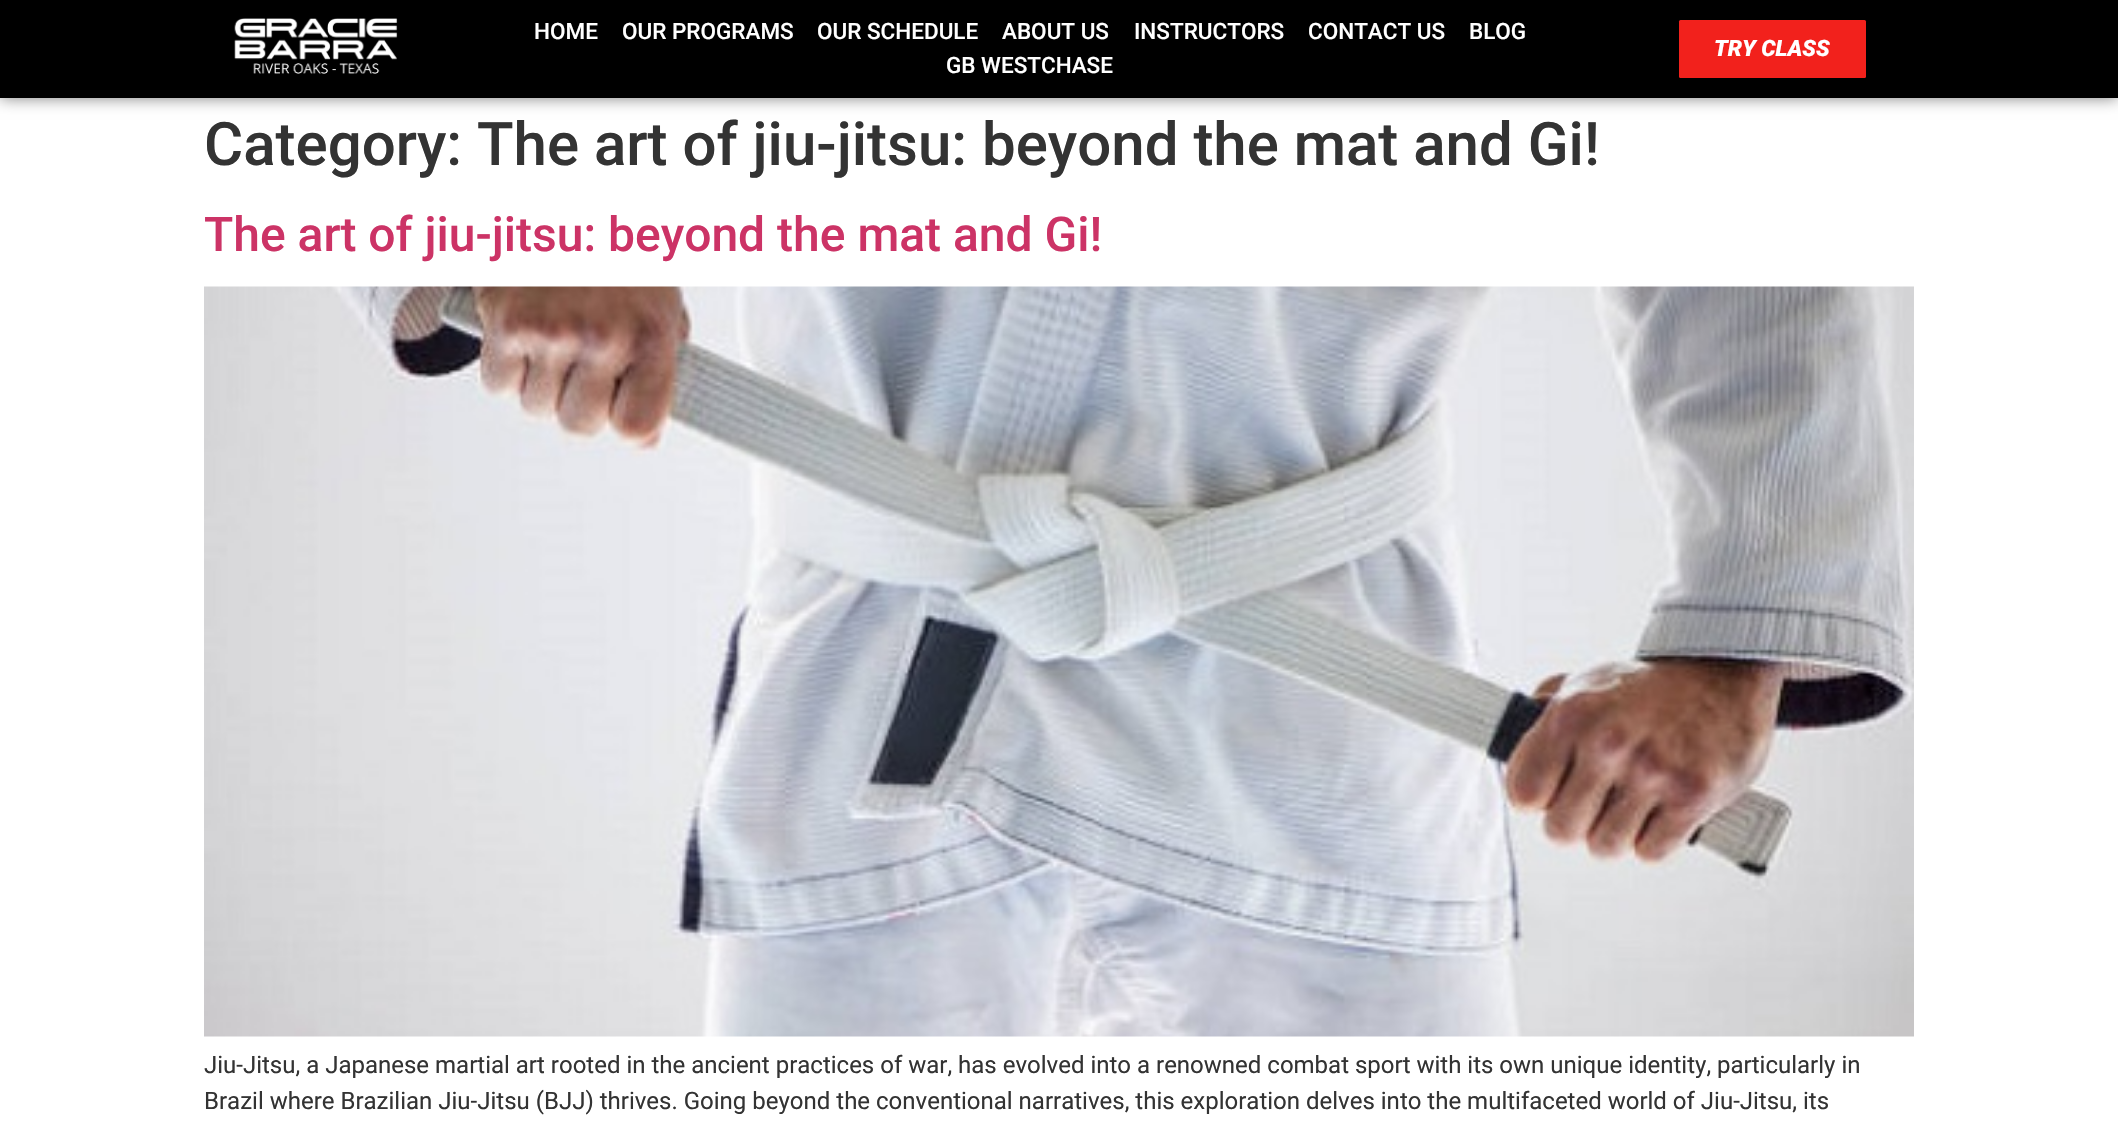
void draw(SkCanvas* c) {
SkPaint p;
p.setAntiAlias(true);
auto F=[&](const char* family, int weight, float size, bool italic = false){SkFontStyle style(weight, SkFontStyle::kNormal_Width,italic ? SkFontStyle::kItalic_Slant : SkFontStyle::kUpright_Slant);SkFont result(fontMgr->matchFamilyStyle(family, style), size);result.setSubpixel(true);return result;};
auto T=[&](const char* s, float x, float y, const SkFont& font){c->drawString(s, x, y, font, p);};
auto R=[&](float x, float y, float w, float h){c->drawRect(SkRect::MakeXYWH(x, y, w, h), p);};
auto Q=[&](float x, float y, float w, float h, float radius){c->drawRoundRect(SkRect::MakeXYWH(x, y, w, h), radius, radius, p);};
auto I=[&](const char* path, float x, float y, float w, float h){auto image = SkImages::DeferredFromEncodedData(SkData::MakeFromFileName(path));c->drawImageRect(image, SkRect::MakeXYWH(x, y, w, h), SkSamplingOptions());};
c->clear(0xffffffff);
p.setColor(0x80000000);
p.setMaskFilter(SkMaskFilter::MakeBlur(kNormal_SkBlurStyle, 7.5));
c->drawRect(SkRect::MakeXYWH(0,0,2118,98),p);
p.setMaskFilter(nullptr);
p.setColor(0xff000000);
R(0,0,2118,98);
I("1.png",234,18,164,56);
auto f1 = F("Roboto",500,22.5);
p.setColor(0xffffffff);
T("HOME",534,39,f1);
T("OUR PROGRAMS",622,39,f1);
T("OUR SCHEDULE",817,39,f1);
T("ABOUT US",1002,39,f1);
T("INSTRUCTORS",1134,39,f1);
T("CONTACT US",1308,39,f1);
T("BLOG",1469,39,f1);
T("GB WESTCHASE",946,73,f1);
p.setColor(0xfff2211c);
Q(1679,20,187,58,1.5);
auto f2 = F("Roboto",900,22.5,true);
p.setColor(0xffffffff);
T("TRY CLASS",1714,56,f2);
auto f3 = F("Roboto",500,60);
p.setColor(0xff333333);
T("Category: The art of jiu-jitsu: beyond the mat and Gi!",204,165,f3);
auto f4 = F("Roboto",500,48);
p.setColor(0xffcc3366);
T("The art of jiu-jitsu: beyond the mat and Gi!",204,251,f4);
I("2.png",204,286,1710,751);
auto f5 = F("Roboto",400,24);
p.setColor(0xff333333);
T("Jiu-Jitsu, a Japanese martial art rooted in the ancient practices of war, has evolved into a renowned combat sport with its own unique identity, particularly in",204,1073,f5);
T("Brazil where Brazilian Jiu-Jitsu (BJJ) thrives. Going beyond the conventional narratives, this exploration delves into the multifaceted world of Jiu-Jitsu, its",204,1109,f5);
}
